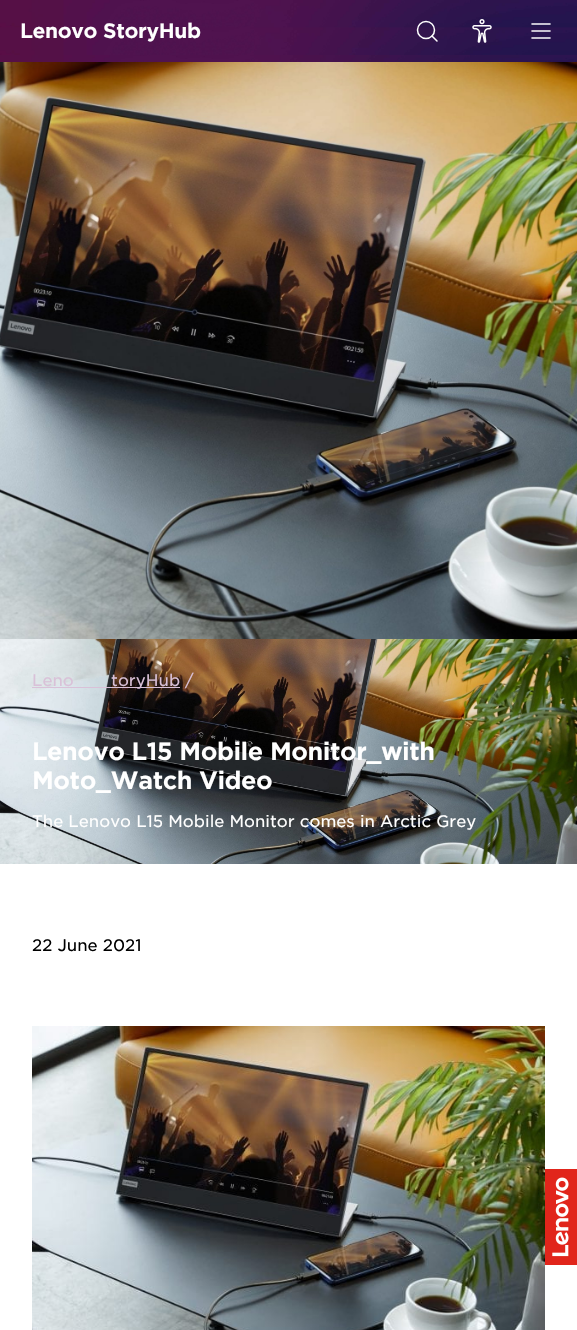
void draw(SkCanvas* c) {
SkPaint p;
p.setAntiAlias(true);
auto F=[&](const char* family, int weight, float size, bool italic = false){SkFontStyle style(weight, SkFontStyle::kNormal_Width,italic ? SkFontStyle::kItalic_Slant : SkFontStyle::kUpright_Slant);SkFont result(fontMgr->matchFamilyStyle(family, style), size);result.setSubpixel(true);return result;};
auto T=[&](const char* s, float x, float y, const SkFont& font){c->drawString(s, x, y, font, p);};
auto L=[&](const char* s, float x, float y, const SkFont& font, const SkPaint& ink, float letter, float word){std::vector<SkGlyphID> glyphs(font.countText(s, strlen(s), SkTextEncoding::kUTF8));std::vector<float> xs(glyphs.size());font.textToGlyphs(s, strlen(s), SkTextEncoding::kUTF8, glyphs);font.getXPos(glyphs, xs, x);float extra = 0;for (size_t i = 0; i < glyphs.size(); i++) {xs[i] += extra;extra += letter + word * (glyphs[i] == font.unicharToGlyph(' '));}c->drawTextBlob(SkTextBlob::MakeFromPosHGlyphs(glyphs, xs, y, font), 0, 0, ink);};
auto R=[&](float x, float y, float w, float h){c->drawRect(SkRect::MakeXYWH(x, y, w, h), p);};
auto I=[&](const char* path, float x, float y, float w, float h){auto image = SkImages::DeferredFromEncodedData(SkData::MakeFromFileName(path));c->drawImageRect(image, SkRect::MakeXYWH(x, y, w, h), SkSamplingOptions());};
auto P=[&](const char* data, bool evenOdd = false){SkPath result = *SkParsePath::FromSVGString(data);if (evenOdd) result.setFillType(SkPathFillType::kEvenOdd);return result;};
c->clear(0xffffffff);
I("1.png",0,0,577,62);
auto f1 = F("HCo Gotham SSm",700,20);
p.setColor(0xffffffff);
L("Lenovo StoryHub",20,38,f1,p,-.4,0);
p.setStroke(true);
p.setStrokeWidth(1.5);
c->drawCircle(426,30,8.5,p);
p.setStrokeCap(SkPaint::kRound_Cap);
p.setStrokeJoin(SkPaint::kRound_Join);
c->drawPath(P("M437 41l-5-5"),p);
I("2.png",472,19,20,24);
I("3.png",531,23,20,16);
I("4.png",0,62,577,577);
I("5.png",0,639,577,225);
auto f2 = F("HCo Gotham SSm",400,16);
p.setStroke(false);
p.setColor(0xffd9c1d8);
T("Leno",32,686,f2);
R(32,687,148,1);
T("toryHub",111,686,f2);
T("/",185,686,f2);
auto f3 = F("HCo Gotham SSm",700,24);
p.setColor(0xffffffff);
L("Lenovo L15 Mobile Monitor_with",32,760,f3,p,-.5,0);
L("Moto_Watch Video",32,789,f3,p,-.5,0);
T("The Lenovo L15 Mobile Monitor comes in Arctic Grey",32,827,f2);
p.setColor(0xff000000);
T("22 June 2021",32,951,f2);
I("6.png",32,1026,513,304);
p.setColor(0xffe1251b);
R(545,1169,32,96);
I("7.png",552,1177,17,80);
}
